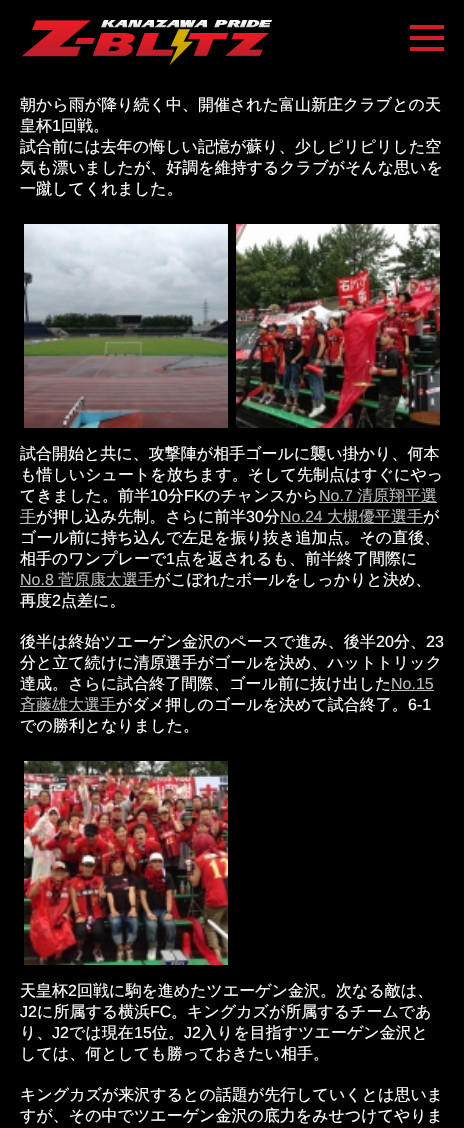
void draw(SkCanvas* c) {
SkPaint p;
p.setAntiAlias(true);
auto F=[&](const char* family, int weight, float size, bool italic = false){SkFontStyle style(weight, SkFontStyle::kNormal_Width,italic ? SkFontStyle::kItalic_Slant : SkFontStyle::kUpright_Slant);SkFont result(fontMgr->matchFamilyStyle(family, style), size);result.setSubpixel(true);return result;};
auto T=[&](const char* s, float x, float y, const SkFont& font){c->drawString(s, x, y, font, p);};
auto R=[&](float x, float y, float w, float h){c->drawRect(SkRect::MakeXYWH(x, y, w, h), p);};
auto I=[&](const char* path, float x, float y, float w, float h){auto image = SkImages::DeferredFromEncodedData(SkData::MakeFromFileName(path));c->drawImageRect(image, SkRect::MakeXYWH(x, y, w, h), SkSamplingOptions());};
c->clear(0xff000000);
I("1.png",22,20,250,45);
p.setColor(0xffd61d27);
R(410,25,34,4);
R(410,36,34,4);
R(410,47,34,4);
auto f1 = F("WenQuanYi Zen Hei",500,16);
p.setColor(0xffffffff);
T("朝から雨が降り続く中、開催された富山新庄クラブとの天",20,110,f1);
T("皇杯",20,131,f1);
auto f2 = F("Liberation Sans",400,16);
T("1",52,131,f2);
T("回戦。",61,131,f1);
T("試合前には去年の悔しい記憶が蘇り、少しピリピリした空",20,152,f1);
T("気も漂いましたが、好調を維持するクラブがそんな思いを",20,173,f1);
T("一蹴してくれました。",20,194,f1);
I("2.png",24,224,204,204);
I("3.png",236,224,204,204);
T("試合開始と共に、攻撃陣が相手ゴールに襲い掛かり、何本",20,459,f1);
T("も惜しいシュートを放ちます。そして先制点はすぐにやっ",20,480,f1);
T("てきました。前半",20,501,f1);
T("10",150,501,f2);
T("分",168,501,f1);
T("FK",184,501,f2);
T("のチャンスから",204,501,f1);
p.setColor(0xffbbbbbb);
T("No.7",319,501,f2);
R(319,502,118,1);
T("清原翔平選",357,501,f1);
R(20,523,16,1);
T("手",20,522,f1);
p.setColor(0xffffffff);
T("が押し込み先制。さらに前半",36,522,f1);
T("30",246,522,f2);
T("分",264,522,f1);
p.setColor(0xffbbbbbb);
T("No.24",280,522,f2);
R(280,523,143,1);
T("大槻優平選手",327,522,f1);
p.setColor(0xffffffff);
T("が",423,522,f1);
T("ゴール前に持ち込んで左足を振り抜き追加点。その直後、",20,543,f1);
T("相手のワンプレーで",20,564,f1);
T("1",166,564,f2);
T("点を返されるも、前半終了間際に",175,564,f1);
p.setColor(0xffbbbbbb);
T("No.8",20,585,f2);
R(20,586,134,1);
T("菅原康太選手",58,585,f1);
p.setColor(0xffffffff);
T("がこぼれたボールをしっかりと決め、",154,585,f1);
T("再度",20,606,f1);
T("2",52,606,f2);
T("点差に。",61,606,f1);
T("後半は終始ツエーゲン金沢のペースで進み、後半",20,647,f1);
T("20",376,647,f2);
T("分、",394,647,f1);
T("23",426,647,f2);
T("分と立て続けに清原選手がゴールを決め、ハットトリック",20,668,f1);
T("達成。さらに試合終了間際、ゴール前に抜け出した",20,689,f1);
p.setColor(0xffbbbbbb);
T("No.15",391,689,f2);
R(391,690,43,1);
R(20,711,96,1);
T("斉藤雄大選手",20,710,f1);
p.setColor(0xffffffff);
T("がダメ押しのゴールを決めて試合終了。",116,710,f1);
T("6-1",408,710,f2);
T("での勝利となりました。",20,731,f1);
I("4.png",24,761,204,204);
T("天皇杯",20,996,f1);
T("2",68,996,f2);
T("回戦に駒を進めたツエーゲン金沢。次なる敵は、",77,996,f1);
T("J2",20,1017,f2);
T("に所属する横浜",37,1017,f1);
T("FC",150,1017,f2);
T("。キングカズが所属するチームであ",171,1017,f1);
T("り、",20,1038,f1);
T("J2",52,1038,f2);
T("では現在",69,1038,f1);
T("15",134,1038,f2);
T("位。",152,1038,f1);
T("J2",184,1038,f2);
T("入りを目指すツエーゲン金沢と",201,1038,f1);
T("しては、何としても勝っておきたい相手。",20,1059,f1);
T("キングカズが来沢するとの話題が先行していくとは思いま",20,1100,f1);
T("すが、その中でツエーゲン金沢の底力をみせつけてやりま",20,1121,f1);
}
